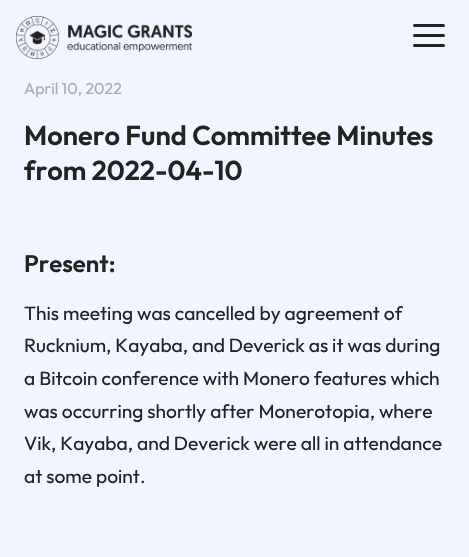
void draw(SkCanvas* c) {
SkPaint p;
p.setAntiAlias(true);
auto F=[&](const char* family, int weight, float size, bool italic = false){SkFontStyle style(weight, SkFontStyle::kNormal_Width,italic ? SkFontStyle::kItalic_Slant : SkFontStyle::kUpright_Slant);SkFont result(fontMgr->matchFamilyStyle(family, style), size);result.setSubpixel(true);return result;};
auto T=[&](const char* s, float x, float y, const SkFont& font){c->drawString(s, x, y, font, p);};
auto Q=[&](float x, float y, float w, float h, float radius){c->drawRoundRect(SkRect::MakeXYWH(x, y, w, h), radius, radius, p);};
auto I=[&](const char* path, float x, float y, float w, float h){auto image = SkImages::DeferredFromEncodedData(SkData::MakeFromFileName(path));c->drawImageRect(image, SkRect::MakeXYWH(x, y, w, h), SkSamplingOptions());};
c->clear(0xfff1f5ff);
I("1.png",16,16,176,43);
p.setColor(0xff232323);
Q(413,24,32,3,1.5);
Q(413,34,32,3,1.5);
Q(413,44,32,3,1.5);
auto f1 = F("Outfit",100,16);
p.setColor(0xffa9acac);
T("April 10, 2022",24,94,f1);
auto f2 = F("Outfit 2",100,27.25);
p.setColor(0xff232323);
T("Monero Fund Committee Minutes",24,145,f2);
T("from 2022-04-10",24,180,f2);
auto f3 = F("Outfit 2",100,24);
T("Present:",24,272,f3);
auto f4 = F("Outfit",100,19.2);
T("This meeting was cancelled by agreement of",24,320,f4);
T("Rucknium, Kayaba, and Deverick as it was during",24,352,f4);
T("a Bitcoin conference with Monero features which",24,385,f4);
T("was occurring shortly after Monerotopia, where",24,418,f4);
T("Vik, Kayaba, and Deverick were all in attendance",24,450,f4);
T("at some point.",24,483,f4);
}
